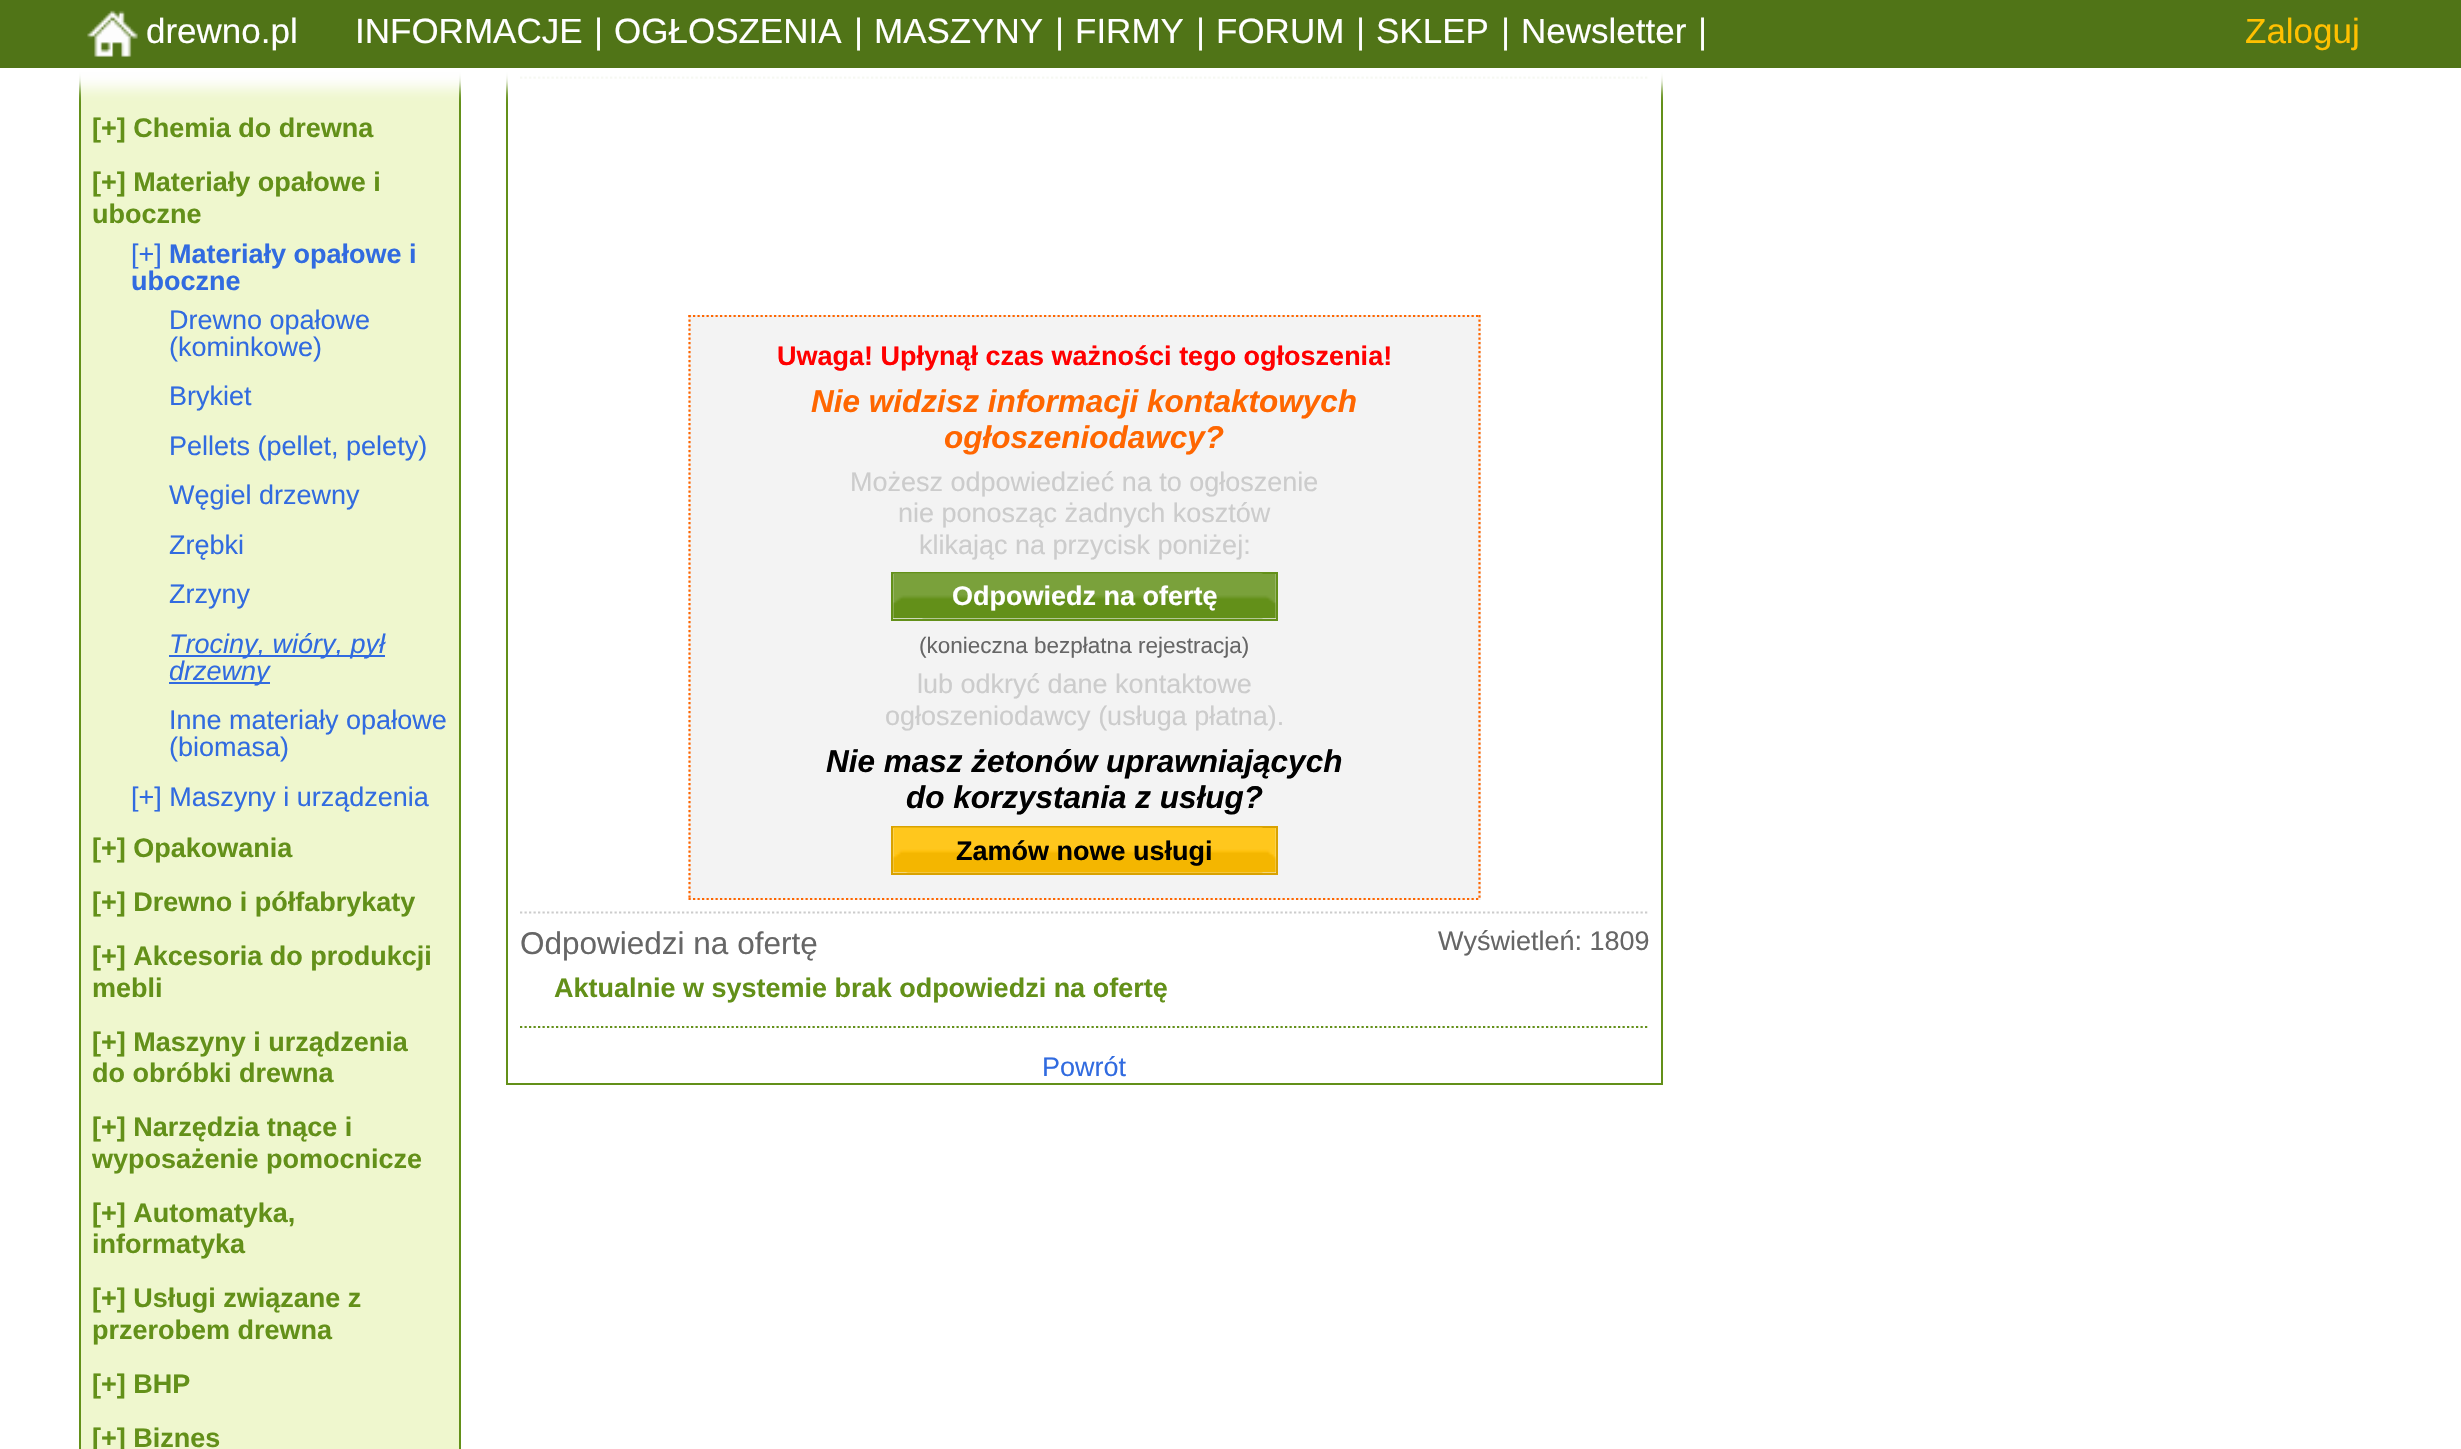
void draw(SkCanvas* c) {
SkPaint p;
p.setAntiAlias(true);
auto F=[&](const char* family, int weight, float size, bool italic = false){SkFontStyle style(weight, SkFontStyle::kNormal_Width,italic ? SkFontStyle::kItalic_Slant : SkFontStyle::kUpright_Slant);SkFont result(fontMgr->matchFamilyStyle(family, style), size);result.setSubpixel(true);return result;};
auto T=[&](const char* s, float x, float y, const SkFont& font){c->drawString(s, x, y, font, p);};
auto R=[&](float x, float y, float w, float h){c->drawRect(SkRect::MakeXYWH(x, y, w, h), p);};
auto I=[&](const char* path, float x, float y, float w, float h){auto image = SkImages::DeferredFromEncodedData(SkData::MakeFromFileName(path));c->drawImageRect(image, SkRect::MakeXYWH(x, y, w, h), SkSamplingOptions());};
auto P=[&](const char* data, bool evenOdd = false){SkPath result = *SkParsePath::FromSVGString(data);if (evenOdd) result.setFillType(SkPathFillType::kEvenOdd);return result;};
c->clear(0xffffffff);
p.setColor(0xffeff7ce);
R(81,69,378,1380);
p.setStroke(true);
p.setStrokeWidth(2);
p.setColor(0xff639019);
c->drawRect(SkRect::MakeXYWH(80,-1,380,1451),p);
c->drawRect(SkRect::MakeXYWH(507,-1,1155,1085),p);
p.setStrokeWidth(2.2);
p.setPathEffect(SkDashPathEffect::Make({{2.25f,2.25f}}, 0));
c->drawPath(P("M520 77.5h1129"),p);
p.setPathEffect(nullptr);
p.setStroke(false);
p.setColor(0xffffffff);
p.setMaskFilter(SkMaskFilter::MakeBlur(kNormal_SkBlurStyle, 7));
c->drawRect(SkRect::MakeXYWH(14,47,2434,41),p);
p.setMaskFilter(nullptr);
p.setColor(0xff507417);
R(0,0,2461,68);
I("1.png",87,10,51,47);
auto f1 = F("Liberation Sans",400,35);
p.setColor(0xffffffff);
T("drewno.pl",146,43,f1);
T("INFORMACJE",355,43,f1);
T("|",594,43,f1);
T("OGŁOSZENIA",614,43,f1);
T("|",854,43,f1);
T("MASZYNY",874,43,f1);
T("|",1055,43,f1);
T("FIRMY",1075,43,f1);
T("|",1196,43,f1);
T("FORUM",1216,43,f1);
T("|",1356,43,f1);
T("SKLEP",1376,43,f1);
T("|",1501,43,f1);
T("Newsletter",1521,43,f1);
T("|",1698,43,f1);
p.setColor(0xffffc000);
T("Zaloguj",2245,43,f1);
auto f2 = F("Liberation Sans",700,27);
p.setColor(0xff639019);
T("[+] Chemia do drewna",92,137,f2);
T("[+] Materiały opałowe i",92,191,f2);
T("uboczne",92,223,f2);
auto f3 = F("Liberation Sans",400,27);
p.setColor(0xff316be0);
T("[+]",131,263,f3);
T("Materiały opałowe i",169,263,f2);
T("uboczne",131,290,f2);
T("Drewno opałowe",169,329,f3);
T("(kominkowe)",169,356,f3);
T("Brykiet",169,405,f3);
T("Pellets (pellet, pelety)",169,455,f3);
T("Węgiel drzewny",169,504,f3);
T("Zrębki",169,554,f3);
T("Zrzyny",169,603,f3);
R(169,655,216,2);
auto f4 = F("Liberation Sans",400,27,true);
T("Trociny, wióry, pył",169,653,f4);
R(169,682,101,2);
T("drzewny",169,680,f4);
T("Inne materiały opałowe",169,729,f3);
T("(biomasa)",169,756,f3);
T("[+] Maszyny i urządzenia",131,806,f3);
p.setColor(0xff639019);
T("[+] Opakowania",92,857,f2);
T("[+] Drewno i półfabrykaty",92,911,f2);
T("[+] Akcesoria do produkcji",92,965,f2);
T("mebli",92,997,f2);
T("[+] Maszyny i urządzenia",92,1051,f2);
T("do obróbki drewna",92,1082,f2);
T("[+] Narzędzia tnące i",92,1136,f2);
T("wyposażenie pomocnicze",92,1168,f2);
T("[+] Automatyka,",92,1222,f2);
T("informatyka",92,1253,f2);
T("[+] Usługi związane z",92,1307,f2);
T("przerobem drewna",92,1339,f2);
T("[+] BHP",92,1393,f2);
T("[+] Biznes",92,1447,f2);
p.setColor(0xfff3f3f3);
R(689,315,792,585);
p.setStroke(true);
p.setColor(0xffff6600);
p.setPathEffect(SkDashPathEffect::Make({{2.25f,2.25f}}, 0));
c->drawPath(P("M688.5 316h792"),p);
p.setPathEffect(nullptr);
p.setPathEffect(SkDashPathEffect::Make({{2.25f,2.25f}}, 0));
c->drawPath(P("M1479.5 315v585"),p);
p.setPathEffect(nullptr);
p.setPathEffect(SkDashPathEffect::Make({{2.25f,2.25f}}, 0));
c->drawPath(P("M688.5 899h792"),p);
p.setPathEffect(nullptr);
p.setPathEffect(SkDashPathEffect::Make({{2.25f,2.25f}}, 0));
c->drawPath(P("M689.5 315v585"),p);
p.setPathEffect(nullptr);
p.setStroke(false);
p.setColor(0xffff0000);
T("Uwaga! Upłynął czas ważności tego ogłoszenia!",777,365,f2);
auto f5 = F("Liberation Sans",700,31.5,true);
p.setColor(0xffff6600);
T("Nie widzisz informacji kontaktowych",811,412,f5);
T("ogłoszeniodawcy?",944,448,f5);
p.setColor(0xffcccccc);
T("Możesz odpowiedzieć na to ogłoszenie",850,491,f3);
T("nie ponosząc żadnych kosztów",898,522,f3);
T("klikając na przycisk poniżej:",919,554,f3);
I("2.png",922,574,354,45);
p.setStroke(true);
p.setStrokeWidth(2);
p.setColor(0xff639019);
c->drawRect(SkRect::MakeXYWH(892,573,385,47),p);
I("3.png",893,573,370,46);
p.setStroke(false);
p.setColor(0xffffffff);
T("Odpowiedz na ofertę",952,605,f2);
auto f6 = F("Liberation Sans",400,22.5);
p.setColor(0xff666666);
T("(konieczna bezpłatna rejestracja)",919,653,f6);
p.setColor(0xffcccccc);
T("lub odkryć dane kontaktowe",917,693,f3);
T("ogłoszeniodawcy (usługa płatna).",885,725,f3);
p.setColor(0xff000000);
T("Nie masz żetonów uprawniających",826,772,f5);
T("do korzystania z usług?",906,808,f5);
I("4.png",906,828,370,45);
p.setStroke(true);
p.setColor(0xffd9a200);
c->drawRect(SkRect::MakeXYWH(892,827,385,47),p);
I("5.png",893,827,370,46);
p.setStroke(false);
p.setColor(0xff000000);
T("Zamów nowe usługi",956,860,f2);
p.setStroke(true);
p.setStrokeWidth(2.2);
p.setColor(0xffcccccc);
p.setPathEffect(SkDashPathEffect::Make({{2.25f,2.25f}}, 0));
c->drawPath(P("M520 912.5h1129"),p);
p.setPathEffect(nullptr);
auto f7 = F("Liberation Sans",400,31.5);
p.setStroke(false);
p.setColor(0xff666666);
T("Odpowiedzi na ofertę",520,954,f7);
T("Wyświetleń: 1809",1438,950,f3);
p.setColor(0xff639019);
T("Aktualnie w systemie brak odpowiedzi na ofertę",554,997,f2);
p.setStroke(true);
p.setPathEffect(SkDashPathEffect::Make({{2.25f,2.25f}}, 0));
c->drawPath(P("M520 1027h1129"),p);
p.setPathEffect(nullptr);
p.setStroke(false);
p.setColor(0xff316be0);
T("Powrót",1042,1076,f3);
}
